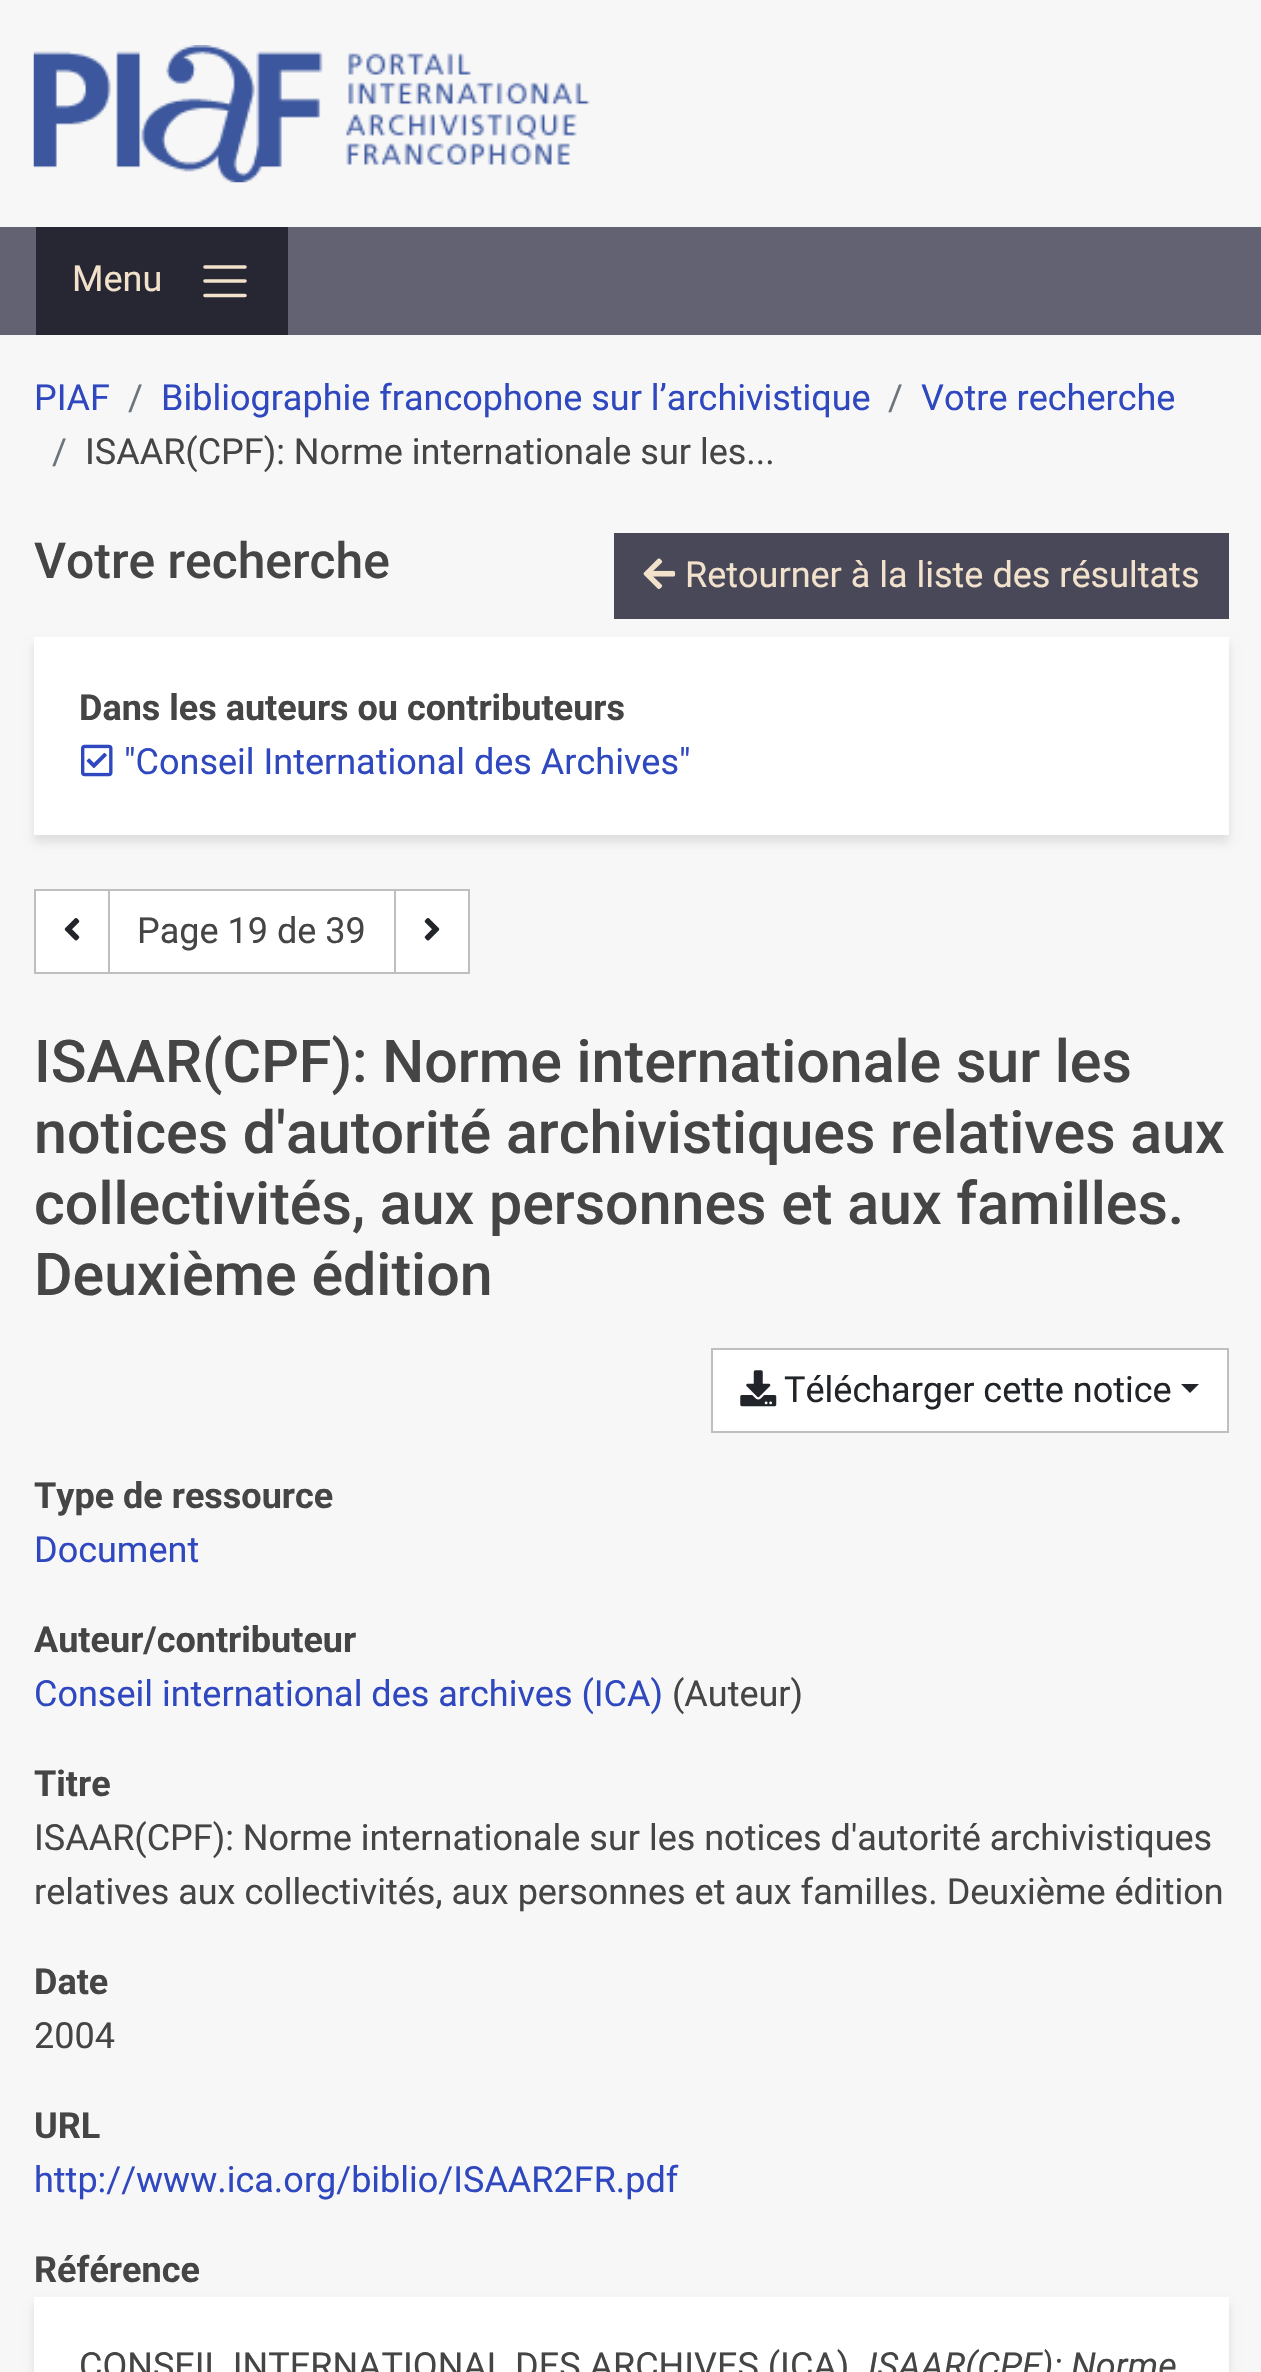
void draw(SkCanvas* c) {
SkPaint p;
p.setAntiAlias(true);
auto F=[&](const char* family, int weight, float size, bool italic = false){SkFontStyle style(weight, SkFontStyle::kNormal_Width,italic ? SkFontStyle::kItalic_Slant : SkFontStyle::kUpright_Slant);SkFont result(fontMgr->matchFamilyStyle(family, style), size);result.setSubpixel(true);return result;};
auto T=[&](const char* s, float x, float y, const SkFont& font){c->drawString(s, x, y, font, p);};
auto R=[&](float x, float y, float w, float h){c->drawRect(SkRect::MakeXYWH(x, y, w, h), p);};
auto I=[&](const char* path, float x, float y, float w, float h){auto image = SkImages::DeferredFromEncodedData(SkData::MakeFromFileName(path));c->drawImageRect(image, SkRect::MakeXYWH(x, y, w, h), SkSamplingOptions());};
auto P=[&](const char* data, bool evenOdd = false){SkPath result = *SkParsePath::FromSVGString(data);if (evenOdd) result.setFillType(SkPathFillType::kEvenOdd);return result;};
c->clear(0xfff7f7f7);
I("1.png",33,45,557,138);
p.setColor(0xff626272);
R(0,227,1261,108);
p.setColor(0xff272733);
R(36,227,252,108);
auto f1 = F("Roboto",400,36);
p.setColor(0xfff2e1cb);
T("Menu",72,291,f1);
p.setStroke(true);
p.setStrokeWidth(3.6);
p.setStrokeCap(SkPaint::kRound_Cap);
c->drawPath(P("M205 267h40m-40 14h40m-40 14.5h40"),p);
p.setStroke(false);
p.setColor(0xff3048bf);
T("PIAF",34,410,f1);
p.setColor(0xff6c757d);
T("/",128,410,f1);
p.setColor(0xff3048bf);
T("Bibliographie francophone sur l’archivistique",161,410,f1);
p.setColor(0xff6c757d);
T("/",888,410,f1);
p.setColor(0xff3048bf);
T("Votre recherche",921,410,f1);
p.setColor(0xff6c757d);
T("/",52,464,f1);
p.setColor(0xff454545);
T("ISAAR(CPF): Norme internationale sur les...",85,464,f1);
auto f2 = F("Roboto",500,49.75);
T("Votre recherche",34,578,f2);
p.setColor(0xff484858);
R(614,533,615,86);
I("2.png",643,558,33,31);
p.setColor(0xfff2e1cb);
T("Retourner à la liste des résultats",685,587,f1);
p.setColor(0x1a000000);
p.setMaskFilter(SkMaskFilter::MakeBlur(kNormal_SkBlurStyle, 4.5));
c->drawRect(SkRect::MakeXYWH(34,644,1195,198),p);
p.setMaskFilter(nullptr);
p.setColor(0xffffffff);
R(34,637,1195,198);
auto f3 = F("Roboto",700,36);
p.setColor(0xff454545);
T("Dans les auteurs ou contributeurs",79,720,f3);
I("3.png",81,744,32,33);
p.setColor(0xff3048bf);
T("\"Conseil International des Archives\"",124,774,f1);
p.setColor(0xffffffff);
c->drawRect(SkRect::MakeXYWH(35,890,74,83),p);
p.setStroke(true);
p.setStrokeWidth(2);
p.setStrokeCap(SkPaint::kButt_Cap);
p.setColor(0xffbfbfbf);
c->drawRect(SkRect::MakeXYWH(35,890,74,83),p);
I("4.png",64,918,16,23);
p.setStroke(false);
p.setColor(0xffffffff);
c->drawRect(SkRect::MakeXYWH(109,890,286,83),p);
p.setStroke(true);
p.setColor(0xffbfbfbf);
c->drawRect(SkRect::MakeXYWH(109,890,286,83),p);
p.setStroke(false);
p.setColor(0xff454545);
T("Page 19 de 39",137,943,f1);
p.setColor(0xffffffff);
c->drawRect(SkRect::MakeXYWH(395,890,74,83),p);
p.setStroke(true);
p.setColor(0xffbfbfbf);
c->drawRect(SkRect::MakeXYWH(395,890,74,83),p);
I("5.png",424,918,16,23);
auto f4 = F("Roboto",500,59.1);
p.setStroke(false);
p.setColor(0xff454545);
T("ISAAR(CPF): Norme internationale sur les",34,1082,f4);
T("notices d'autorité archivistiques relatives aux",34,1153,f4);
T("collectivités, aux personnes et aux familles.",34,1224,f4);
T("Deuxième édition",34,1295,f4);
p.setColor(0xffffffff);
c->drawRect(SkRect::MakeXYWH(712,1349,516,83),p);
p.setStroke(true);
p.setColor(0xffbfbfbf);
c->drawRect(SkRect::MakeXYWH(712,1349,516,83),p);
I("6.png",740,1370,37,37);
p.setStroke(false);
p.setColor(0xff212529);
T("Télécharger cette notice",784,1402,f1);
c->drawPath(P("M1181 1384h18l-9 9z"),p);
p.setColor(0xff454545);
T("Type de ressource",34,1508,f3);
p.setColor(0xff3048bf);
T("Document",34,1562,f1);
p.setColor(0xff454545);
T("Auteur/contributeur",34,1652,f3);
p.setColor(0xff3048bf);
T("Conseil international des archives (ICA)",34,1706,f1);
p.setColor(0xff454545);
T("(Auteur)",672,1706,f1);
T("Titre",34,1796,f3);
T("ISAAR(CPF): Norme internationale sur les notices d'autorité archivistiques",34,1850,f1);
T("relatives aux collectivités, aux personnes et aux familles. Deuxième édition",34,1904,f1);
T("Date",34,1994,f3);
T("2004",34,2048,f1);
T("URL",34,2138,f3);
p.setColor(0xff3048bf);
T("http://www.ica.org/biblio/ISAAR2FR.pdf",34,2192,f1);
p.setColor(0xff454545);
T("Référence",34,2282,f3);
p.setColor(0x1a000000);
p.setMaskFilter(SkMaskFilter::MakeBlur(kNormal_SkBlurStyle, 4.5));
c->drawRect(SkRect::MakeXYWH(34,2304,1195,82),p);
p.setMaskFilter(nullptr);
p.setColor(0xffffffff);
R(34,2297,1195,75);
p.setColor(0xff454545);
T("CONSEIL INTERNATIONAL DES ARCHIVES (ICA)",79,2378,f1);
auto f5 = F("Roboto",400,36,true);
T("ISAAR(CPF): Norme",868,2378,f5);
}
